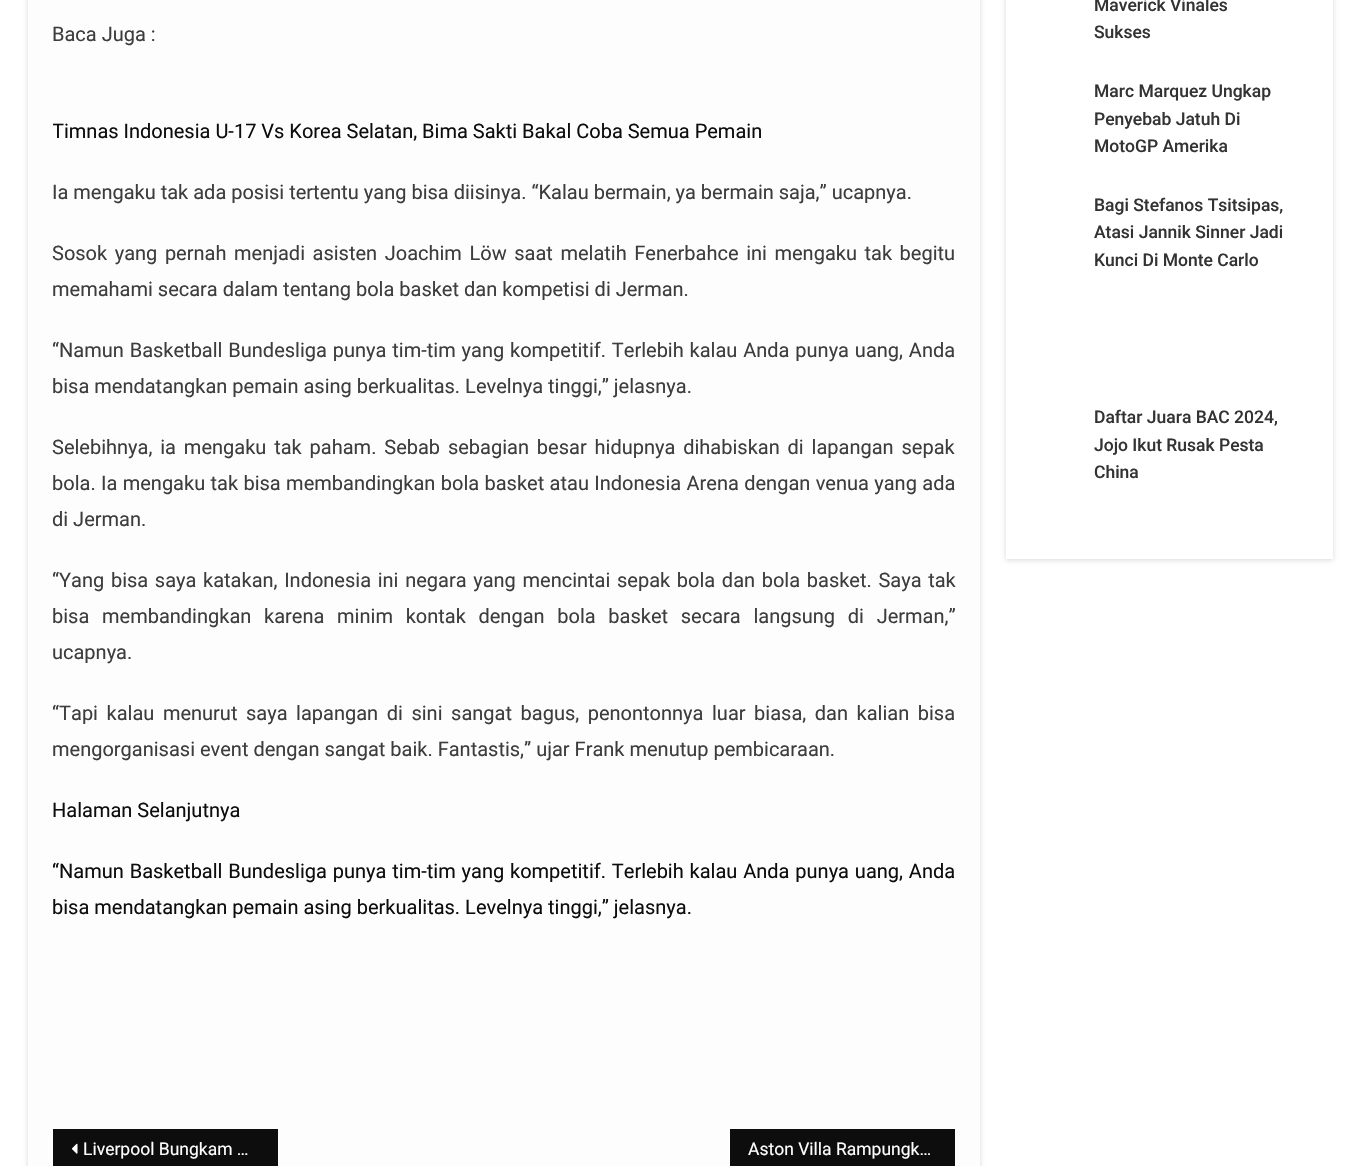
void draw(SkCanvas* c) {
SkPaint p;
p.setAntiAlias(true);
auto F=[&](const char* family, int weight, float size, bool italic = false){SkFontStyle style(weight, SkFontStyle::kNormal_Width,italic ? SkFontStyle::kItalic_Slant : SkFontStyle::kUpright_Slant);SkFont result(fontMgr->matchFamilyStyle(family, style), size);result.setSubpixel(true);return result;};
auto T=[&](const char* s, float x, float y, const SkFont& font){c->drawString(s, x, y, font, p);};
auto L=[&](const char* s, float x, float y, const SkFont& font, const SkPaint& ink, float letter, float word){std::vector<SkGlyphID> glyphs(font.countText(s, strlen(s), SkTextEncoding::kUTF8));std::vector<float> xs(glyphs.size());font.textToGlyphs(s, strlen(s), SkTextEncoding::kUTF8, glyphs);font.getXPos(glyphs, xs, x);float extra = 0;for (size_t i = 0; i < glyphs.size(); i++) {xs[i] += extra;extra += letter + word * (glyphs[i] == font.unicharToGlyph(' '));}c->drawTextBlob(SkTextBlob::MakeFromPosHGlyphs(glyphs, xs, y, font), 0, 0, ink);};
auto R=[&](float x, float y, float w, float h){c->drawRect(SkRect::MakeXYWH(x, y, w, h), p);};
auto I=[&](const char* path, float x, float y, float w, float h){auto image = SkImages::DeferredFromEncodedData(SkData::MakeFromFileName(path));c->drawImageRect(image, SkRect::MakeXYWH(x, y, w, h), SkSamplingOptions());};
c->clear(0xffffffff);
p.setColor(0x26000000);
p.setMaskFilter(SkMaskFilter::MakeBlur(kNormal_SkBlurStyle, 2.5));
c->drawRect(SkRect::MakeXYWH(28,-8,952,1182),p);
p.setMaskFilter(nullptr);
p.setColor(0xfffdfdfd);
R(28,0,952,1166);
auto f1 = F("Roboto",400,20);
p.setColor(0xff3d3d3d);
T("Baca Juga :",52,41,f1);
c->save();
c->clipRect(SkRect::MakeXYWH(53,0,902,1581));
p.setColor(0xff0d0d0d);
T("Timnas Indonesia U-17 Vs Korea Selatan, Bima Sakti Bakal Coba Semua Pemain",52,138,f1);
c->restore();
p.setColor(0xff3d3d3d);
T("Ia mengaku tak ada posisi tertentu yang bisa diisinya. “Kalau bermain, ya bermain saja,” ucapnya.",52,199,f1);
L("Sosok yang pernah menjadi asisten Joachim Löw saat melatih Fenerbahce ini mengaku tak begitu",52,260,f1,p,0,2.6);
T("memahami secara dalam tentang bola basket dan kompetisi di Jerman.",52,296,f1);
L("“Namun Basketball Bundesliga punya tim-tim yang kompetitif. Terlebih kalau Anda punya uang, Anda",52,357,f1,p,0,.9);
T("bisa mendatangkan pemain asing berkualitas. Levelnya tinggi,” jelasnya.",52,393,f1);
L("Selebihnya, ia mengaku tak paham. Sebab sebagian besar hidupnya dihabiskan di lapangan sepak",52,454,f1,p,0,2.9);
L("bola. Ia mengaku tak bisa membandingkan bola basket atau Indonesia Arena dengan venua yang ada",52,490,f1,p,0,.4);
T("di Jerman.",52,526,f1);
L("“Yang bisa saya katakan, Indonesia ini negara yang mencintai sepak bola dan bola basket. Saya tak",52,587,f1,p,0,1.7);
L("bisa membandingkan karena minim kontak dengan bola basket secara langsung di Jerman,”",52,623,f1,p,0,7.75);
T("ucapnya.",52,659,f1);
L("“Tapi kalau menurut saya lapangan di sini sangat bagus, penontonnya luar biasa, dan kalian bisa",52,720,f1,p,0,3.6);
T("mengorganisasi event dengan sangat baik. Fantastis,” ujar Frank menutup pembicaraan.",52,756,f1);
p.setColor(0xff0d0d0d);
T("Halaman Selanjutnya",52,817,f1);
L("“Namun Basketball Bundesliga punya tim-tim yang kompetitif. Terlebih kalau Anda punya uang, Anda",52,878,f1,p,0,.9);
T("bisa mendatangkan pemain asing berkualitas. Levelnya tinggi,” jelasnya.",52,914,f1);
R(53,1129,225,37);
I("1.png",71,1143,7,11);
auto f2 = F("Roboto",400,17.5);
p.setColor(0xffffffff);
T("Liverpool Bungkam …",83,1155,f2);
p.setColor(0xff0d0d0d);
R(730,1129,225,37);
p.setColor(0xffffffff);
T("Aston Villa Rampungk…",748,1155,f2);
p.setColor(0x26000000);
p.setMaskFilter(SkMaskFilter::MakeBlur(kNormal_SkBlurStyle, 2.5));
c->drawRect(SkRect::MakeXYWH(1006,-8,327,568),p);
p.setMaskFilter(nullptr);
p.setColor(0xffffffff);
R(1006,0,327,559);
auto f3 = F("Roboto",500,17.5);
p.setColor(0xff333333);
T("Maverick Vinales",1094,11,f3);
T("Sukses",1094,38,f3);
T("Marc Marquez Ungkap",1094,97,f3);
T("Penyebab Jatuh Di",1094,125,f3);
T("MotoGP Amerika",1094,152,f3);
T("Bagi Stefanos Tsitsipas,",1094,211,f3);
T("Atasi Jannik Sinner Jadi",1094,238,f3);
T("Kunci Di Monte Carlo",1094,266,f3);
T("Daftar Juara BAC 2024,",1094,423,f3);
T("Jojo Ikut Rusak Pesta",1094,451,f3);
T("China",1094,478,f3);
}
